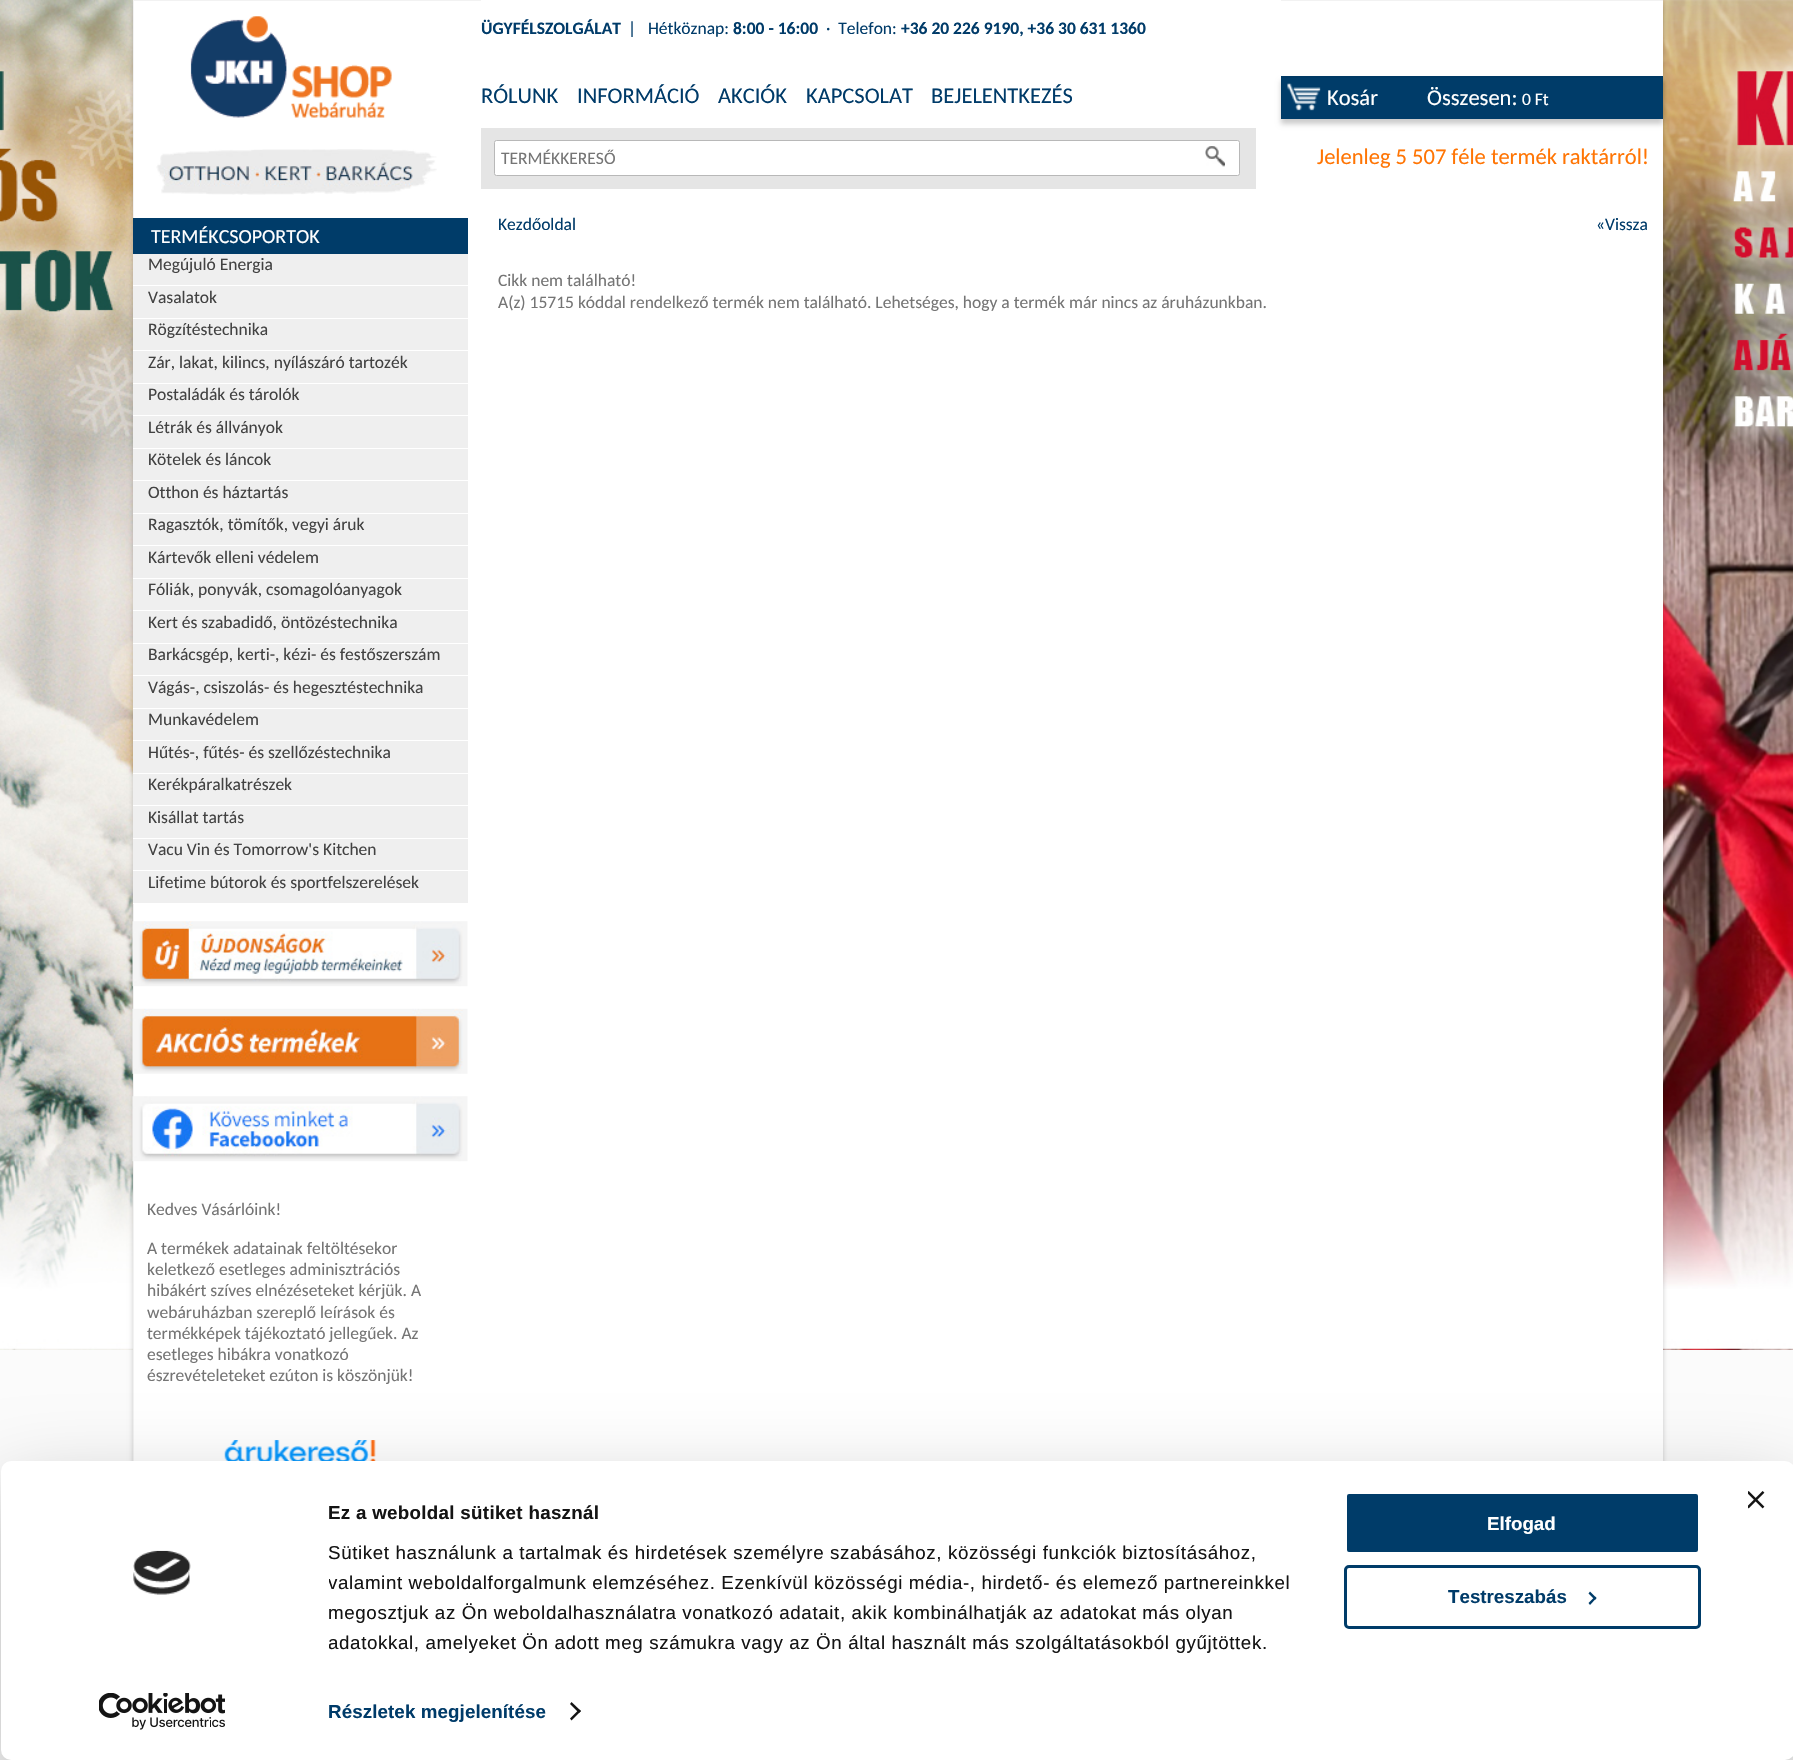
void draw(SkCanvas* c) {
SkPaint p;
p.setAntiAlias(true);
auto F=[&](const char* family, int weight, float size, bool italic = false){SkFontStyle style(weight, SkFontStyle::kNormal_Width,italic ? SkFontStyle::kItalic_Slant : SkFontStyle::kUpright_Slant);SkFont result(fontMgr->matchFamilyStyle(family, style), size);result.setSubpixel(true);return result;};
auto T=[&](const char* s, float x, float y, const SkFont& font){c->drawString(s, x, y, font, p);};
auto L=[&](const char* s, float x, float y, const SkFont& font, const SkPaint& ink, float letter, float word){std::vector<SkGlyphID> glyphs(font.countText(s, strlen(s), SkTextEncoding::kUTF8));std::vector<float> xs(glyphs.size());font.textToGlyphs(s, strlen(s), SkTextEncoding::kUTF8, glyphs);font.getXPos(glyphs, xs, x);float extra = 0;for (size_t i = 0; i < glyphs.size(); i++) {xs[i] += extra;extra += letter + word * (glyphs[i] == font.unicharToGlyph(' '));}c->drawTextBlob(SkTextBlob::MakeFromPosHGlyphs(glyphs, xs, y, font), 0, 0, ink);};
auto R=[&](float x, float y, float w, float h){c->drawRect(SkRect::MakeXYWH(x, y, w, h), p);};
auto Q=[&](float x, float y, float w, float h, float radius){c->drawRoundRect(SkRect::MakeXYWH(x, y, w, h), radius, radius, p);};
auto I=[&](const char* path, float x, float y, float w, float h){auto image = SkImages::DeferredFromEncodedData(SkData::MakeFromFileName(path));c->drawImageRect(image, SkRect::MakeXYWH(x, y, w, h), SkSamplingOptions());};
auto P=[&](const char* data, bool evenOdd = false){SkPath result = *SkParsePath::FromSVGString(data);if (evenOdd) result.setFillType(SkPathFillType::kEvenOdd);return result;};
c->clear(0xfffbfbfb);
I("1.png",0,0,1793,1350);
p.setColor(0x33000000);
p.setMaskFilter(SkMaskFilter::MakeBlur(kNormal_SkBlurStyle, 2.5));
c->drawRect(SkRect::MakeXYWH(133,5,1530,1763),p);
p.setMaskFilter(nullptr);
p.setColor(0xffffffff);
R(134,1,1529,1460);
c->save();
c->clipRect(SkRect::MakeXYWH(133,0,1530,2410));
p.setColor(0xfff2f2f2);
c->drawPath(P("M9-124h1777v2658h-1777zm125 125h1530v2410h-1530z",true),p);
c->restore();
I("2.png",190,16,202,102);
I("3.png",156,149,281,46);
p.setColor(0xffffffff);
R(481,0,800,1);
auto f1 = F("Carlito",700,17.5);
p.setColor(0xff003b69);
T("ÜGYFÉLSZOLGÁLAT",481,34,f1);
auto f2 = F("Carlito",400,17.5);
T("|   Hétköznap:",628,34,f2);
T("8:00 - 16:00",733,34,f1);
T("·  Telefon:",826,34,f2);
T("+36 20 226 9190, +36 30 631 1360",901,34,f1);
auto f3 = F("Carlito",400,22.5);
T("RÓLUNK",481,103,f3);
T("INFORMÁCIÓ",577,103,f3);
T("AKCIÓK",718,103,f3);
T("KAPCSOLAT",806,103,f3);
T("BEJELENTKEZÉS",931,103,f3);
p.setColor(0x33000000);
p.setMaskFilter(SkMaskFilter::MakeBlur(kNormal_SkBlurStyle, 2.5));
c->drawRect(SkRect::MakeXYWH(1281,81,382,43),p);
p.setMaskFilter(nullptr);
p.setColor(0xff003c69);
R(1282,78,381,41);
c->save();
c->clipRect(SkRect::MakeXYWH(1281,76,382,43));
p.setColor(0xff003964);
c->drawPath(P("M1158-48h628v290h-628zm124 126h382v42h-382z",true),p);
c->restore();
I("4.png",1287,83,34,28);
p.setColor(0xffffffff);
T("Kosár",1327,105,f3);
T("Összesen:",1427,105,f3);
T("0 Ft",1522,105,f2);
p.setColor(0xffe5e5e5);
R(481,128,775,61);
p.setColor(0xffffffff);
c->drawRoundRect(SkRect::MakeXYWH(494.5,140.5,745,35),2,2,p);
p.setStroke(true);
p.setStrokeWidth(1);
p.setColor(0xffb8b8b8);
c->drawRoundRect(SkRect::MakeXYWH(494.5,140.5,745,35),2,2,p);
p.setStroke(false);
p.setColor(0xff757575);
T("TERMÉKKERESŐ",501,164,f2);
I("5.png",1205,146,20,21);
p.setColor(0xffff7504);
T("Jelenleg 5 507 féle termék raktárról!",1317,164,f3);
p.setColor(0xff003c69);
R(133,218,335,36);
auto f4 = F("Carlito",400,20);
p.setColor(0xffffffff);
T("TERMÉKCSOPORTOK",151,243,f4);
p.setColor(0xffefefef);
R(133,254,335,31);
p.setColor(0xffffffff);
R(133,285,1,1);
p.setColor(0xff424242);
T("Megújuló Energia",148,270,f2);
p.setColor(0xffefefef);
R(133,286,335,32);
p.setColor(0xffffffff);
R(133,318,1,1);
p.setColor(0xff424242);
T("Vasalatok",148,303,f2);
p.setColor(0xffefefef);
R(133,319,335,31);
p.setColor(0xffffffff);
R(133,350,1,1);
p.setColor(0xff424242);
T("Rögzítéstechnika",148,335,f2);
p.setColor(0xffefefef);
R(133,351,335,32);
p.setColor(0xffffffff);
R(133,383,1,1);
p.setColor(0xff424242);
T("Zár, lakat, kilincs, nyílászáró tartozék",148,368,f2);
p.setColor(0xffefefef);
R(133,384,335,31);
p.setColor(0xffffffff);
R(133,415,1,1);
p.setColor(0xff424242);
T("Postaládák és tárolók",148,400,f2);
p.setColor(0xffefefef);
R(133,416,335,32);
p.setColor(0xffffffff);
R(133,448,1,1);
p.setColor(0xff424242);
T("Létrák és állványok",148,433,f2);
p.setColor(0xffefefef);
R(133,449,335,31);
p.setColor(0xffffffff);
R(133,480,1,1);
p.setColor(0xff424242);
T("Kötelek és láncok",148,465,f2);
p.setColor(0xffefefef);
R(133,481,335,32);
p.setColor(0xffffffff);
R(133,513,1,1);
p.setColor(0xff424242);
T("Otthon és háztartás",148,498,f2);
p.setColor(0xffefefef);
R(133,514,335,31);
p.setColor(0xffffffff);
R(133,545,1,1);
p.setColor(0xff424242);
T("Ragasztók, tömítők, vegyi áruk",148,530,f2);
p.setColor(0xffefefef);
R(133,546,335,32);
p.setColor(0xffffffff);
R(133,578,1,1);
p.setColor(0xff424242);
T("Kártevők elleni védelem",148,563,f2);
p.setColor(0xffefefef);
R(133,579,335,31);
p.setColor(0xffffffff);
R(133,610,1,1);
p.setColor(0xff424242);
T("Fóliák, ponyvák, csomagolóanyagok",148,595,f2);
p.setColor(0xffefefef);
R(133,611,335,32);
p.setColor(0xffffffff);
R(133,643,1,1);
p.setColor(0xff424242);
T("Kert és szabadidő, öntözéstechnika",148,628,f2);
p.setColor(0xffefefef);
R(133,644,335,31);
p.setColor(0xffffffff);
R(133,675,1,1);
p.setColor(0xff424242);
T("Barkácsgép, kerti-, kézi- és festőszerszám",148,660,f2);
p.setColor(0xffefefef);
R(133,676,335,32);
p.setColor(0xffffffff);
R(133,708,1,1);
p.setColor(0xff424242);
T("Vágás-, csiszolás- és hegesztéstechnika",148,693,f2);
p.setColor(0xffefefef);
R(133,709,335,31);
p.setColor(0xffffffff);
R(133,740,1,1);
p.setColor(0xff424242);
T("Munkavédelem",148,725,f2);
p.setColor(0xffefefef);
R(133,741,335,32);
p.setColor(0xffffffff);
R(133,773,1,1);
p.setColor(0xff424242);
T("Hűtés-, fűtés- és szellőzéstechnika",148,758,f2);
p.setColor(0xffefefef);
R(133,774,335,31);
p.setColor(0xffffffff);
R(133,805,1,1);
p.setColor(0xff424242);
T("Kerékpáralkatrészek",148,790,f2);
p.setColor(0xffefefef);
R(133,806,335,32);
p.setColor(0xffffffff);
R(133,838,1,1);
p.setColor(0xff424242);
T("Kisállat tartás",148,823,f2);
p.setColor(0xffefefef);
R(133,839,335,31);
p.setColor(0xffffffff);
R(133,870,1,1);
p.setColor(0xff424242);
T("Vacu Vin és Tomorrow's Kitchen",148,855,f2);
p.setColor(0xffefefef);
R(133,871,335,32);
p.setColor(0xffffffff);
R(133,903,1,1);
p.setColor(0xff424242);
T("Lifetime bútorok és sportfelszerelések",148,888,f2);
I("6.png",132,921,336,66);
I("7.png",132,1008,336,66);
I("8.png",132,1096,336,66);
p.setColor(0xff757575);
T("Kedves Vásárlóink!",147,1215,f2);
T("A termékek adatainak feltöltésekor",147,1254,f2);
T("keletkező esetleges adminisztrációs",147,1275,f2);
T("hibákért szíves elnézéseteket kérjük. A",147,1296,f2);
T("webáruházban szereplő leírások és",147,1318,f2);
T("termékképek tájékoztató jellegűek. Az",147,1339,f2);
T("esetleges hibákra vonatkozó",147,1360,f2);
T("észrevételeteket ezúton is köszönjük!",147,1381,f2);
I("9.png",224,1440,152,21);
p.setColor(0xff003b69);
T("Kezdőoldal",498,230,f2);
T("«Vissza",1596,230,f2);
p.setColor(0xff757575);
T("Cikk nem található!",498,286,f2);
T("A(z) 15715 kóddal rendelkező termék nem található. Lehetséges, hogy a termék már nincs az áruházunkban.",498,308,f2);
p.setColor(0x4d000000);
p.setMaskFilter(SkMaskFilter::MakeBlur(kNormal_SkBlurStyle, 44));
c->drawRoundRect(SkRect::MakeXYWH(1,1499,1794,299),10,10,p);
p.setMaskFilter(nullptr);
p.setColor(0xffffffff);
Q(1,1461,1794,299,10);
I("10.png",1748,1491,17,18);
I("11.png",133,1550,58,45);
I("12.png",99,1693,126,37);
c->save();
c->clipRect(SkRect::MakeXYWH(329,1499,1007,159));
auto f5 = F("Liberation Sans",700,18.75);
p.setColor(0xff141414);
L("Ez a weboldal sütiket használ",328,1519,f5,p,.3,0);
c->restore();
auto f6 = F("Liberation Sans",400,18.75);
L("Sütiket használunk a tartalmak és hirdetések személyre szabásához, közösségi funkciók biztosításához,",328,1559,f6,p,.62,0);
c->save();
c->clipRect(SkRect::MakeXYWH(329,1499,1007,159));
L("valamint weboldalforgalmunk elemzéséhez. Ezenkívül közösségi média-, hirdető- és elemező partnereinkkel",328,1589,f6,p,.62,0);
c->restore();
L("megosztjuk az Ön weboldalhasználatra vonatkozó adatait, akik kombinálhatják az adatokat más olyan",328,1619,f6,p,.62,0);
c->save();
c->clipRect(SkRect::MakeXYWH(329,1499,1007,159));
L("adatokkal, amelyeket Ön adott meg számukra vagy az Ön által használt más szolgáltatásokból gyűjtöttek.",328,1649,f6,p,.62,0);
c->restore();
p.setColor(0xff003b69);
L("Részletek megjelenítése",328,1718,f5,p,.1,0);
p.setColor(0xff141414);
c->drawPath(P("M571.5 1702l9.5 9l-2 2l-9-9z"),p);
c->drawPath(P("M579 1709.5l2 1.5l-9.5 9.5l-1.5-2z"),p);
p.setColor(0xff003c69);
c->drawRoundRect(SkRect::MakeXYWH(1345.5,1492.5,354,61),3.5,3.5,p);
p.setStroke(true);
p.setStrokeWidth(3);
p.setColor(0xffffffff);
c->drawRoundRect(SkRect::MakeXYWH(1345.5,1492.5,354,61),3.5,3.5,p);
p.setStroke(false);
T("Elfogad",1487,1530,f5);
p.setStroke(true);
p.setColor(0xff003c69);
c->drawRoundRect(SkRect::MakeXYWH(1345.5,1566.5,354,61),3.5,3.5,p);
p.setStroke(false);
p.setColor(0xff003b69);
T("Testreszabás",1448,1603,f5);
p.setColor(0xff003c69);
c->drawPath(P("M1590 1591.5l6.5 6.5l-1.5 2l-6.5-6.5z"),p);
c->drawPath(P("M1595 1596.5l1.5 1.5l-6.5 7l-1.5-2z"),p);
}
